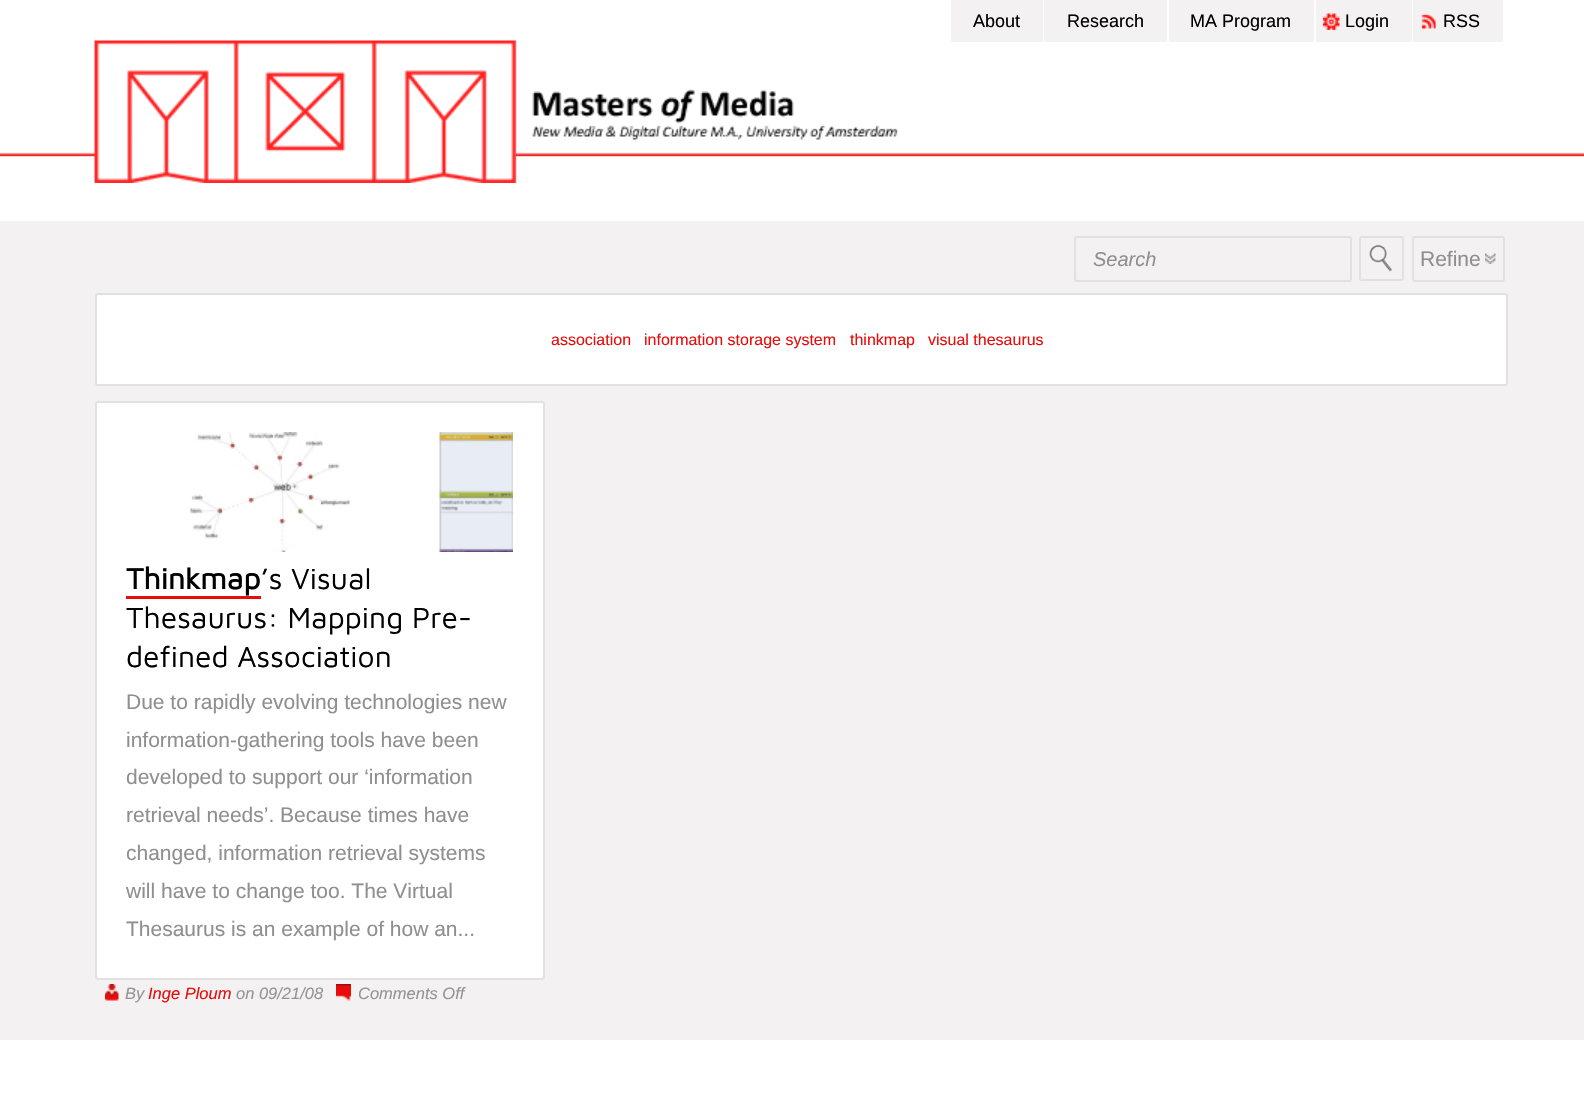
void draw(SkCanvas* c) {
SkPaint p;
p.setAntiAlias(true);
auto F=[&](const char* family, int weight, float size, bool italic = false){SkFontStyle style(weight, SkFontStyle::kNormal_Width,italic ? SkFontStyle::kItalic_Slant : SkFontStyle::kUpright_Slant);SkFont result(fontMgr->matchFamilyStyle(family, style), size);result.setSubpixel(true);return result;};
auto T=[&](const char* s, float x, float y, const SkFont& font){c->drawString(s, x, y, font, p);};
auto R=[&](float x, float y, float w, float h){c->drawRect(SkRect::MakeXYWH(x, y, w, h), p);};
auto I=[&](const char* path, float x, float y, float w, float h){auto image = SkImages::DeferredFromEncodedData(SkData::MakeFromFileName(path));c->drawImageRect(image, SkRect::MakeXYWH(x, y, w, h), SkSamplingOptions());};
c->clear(0xffffffff);
p.setColor(0xfff3f1f1);
R(951,0,92,42);
auto f1 = F("Liberation Sans",400,18);
p.setColor(0xff000000);
T("About",973,27,f1);
p.setColor(0xfff3f1f1);
R(1044,0,123,42);
p.setColor(0xff000000);
T("Research",1067,27,f1);
p.setColor(0xfff3f1f1);
R(1169,0,145,42);
p.setColor(0xff000000);
T("MA Program",1190,27,f1);
p.setColor(0xfff3f1f1);
R(1316,0,96,42);
I("1.png",1323,13,17,17);
p.setColor(0xff000000);
T("Login",1345,27,f1);
p.setColor(0xfff3f1f1);
R(1413,0,90,42);
I("2.png",1421,14,15,15);
p.setColor(0xff000000);
T("RSS",1443,27,f1);
I("3.png",0,152,1584,5);
I("4.png",94,40,804,143);
p.setColor(0xfff3f1f1);
R(0,221,1584,819);
p.setStroke(true);
p.setStrokeWidth(2);
p.setColor(0xffe2e0e0);
c->drawRoundRect(SkRect::MakeXYWH(1075,237,276,44),2,2,p);
auto f2 = F("Liberation Sans",400,20,true);
p.setStroke(false);
p.setColor(0xff8f8f8f);
T("Search",1093,266,f2);
I("5.png",1369,244,23,28);
p.setStroke(true);
p.setColor(0xffe2e0e0);
c->drawRoundRect(SkRect::MakeXYWH(1360,237,43,43),2,2,p);
c->drawRoundRect(SkRect::MakeXYWH(1413,237,91,44),2,2,p);
auto f3 = F("Liberation Sans",400,21);
p.setStroke(false);
p.setColor(0xff8f8f8f);
T("Refine",1420,266,f3);
I("6.png",1485,253,11,11);
p.setColor(0xffffffff);
c->drawRoundRect(SkRect::MakeXYWH(96,294,1411,91),2,2,p);
p.setStroke(true);
p.setColor(0xffe2e0e0);
c->drawRoundRect(SkRect::MakeXYWH(96,294,1411,91),2,2,p);
auto f4 = F("Liberation Sans",400,16);
p.setStroke(false);
p.setColor(0xffea0b0b);
T("association",551,345,f4);
T("information storage system",644,345,f4);
T("thinkmap",850,345,f4);
T("visual thesaurus",928,345,f4);
p.setColor(0xffffffff);
c->drawRoundRect(SkRect::MakeXYWH(96,402,448,577),2,2,p);
p.setStroke(true);
p.setColor(0xffe2e0e0);
c->drawRoundRect(SkRect::MakeXYWH(96,402,448,577),2,2,p);
I("7.png",190,432,323,120);
auto f5 = F("Maven Pro",700,30);
p.setStroke(false);
p.setColor(0xff000000);
T("Thinkmap",126,589,f5);
p.setColor(0xffea0b0b);
R(126,596,135,3);
auto f6 = F("Maven Pro",400,30);
p.setColor(0xff000000);
T("’s Visual",261,589,f6);
T("Thesaurus: Mapping Pre-",126,628,f6);
T("defined Association",126,667,f6);
p.setColor(0xff8f8f8f);
T("Due to rapidly evolving technologies new",126,709,f3);
T("information-gathering tools have been",126,747,f3);
T("developed to support our ‘information",126,784,f3);
T("retrieval needs’. Because times have",126,822,f3);
T("changed, information retrieval systems",126,860,f3);
T("will have to change too. The Virtual",126,898,f3);
T("Thesaurus is an example of how an...",126,936,f3);
I("8.png",105,984,14,17);
auto f7 = F("Liberation Sans",400,16.5,true);
p.setColor(0xff959394);
T("By",125,999,f7);
p.setColor(0xffea0b0b);
T("Inge Ploum",148,999,f7);
p.setColor(0xff959394);
T("on 09/21/08",236,999,f7);
I("9.png",336,984,15,17);
T("Comments Off",358,999,f7);
}
